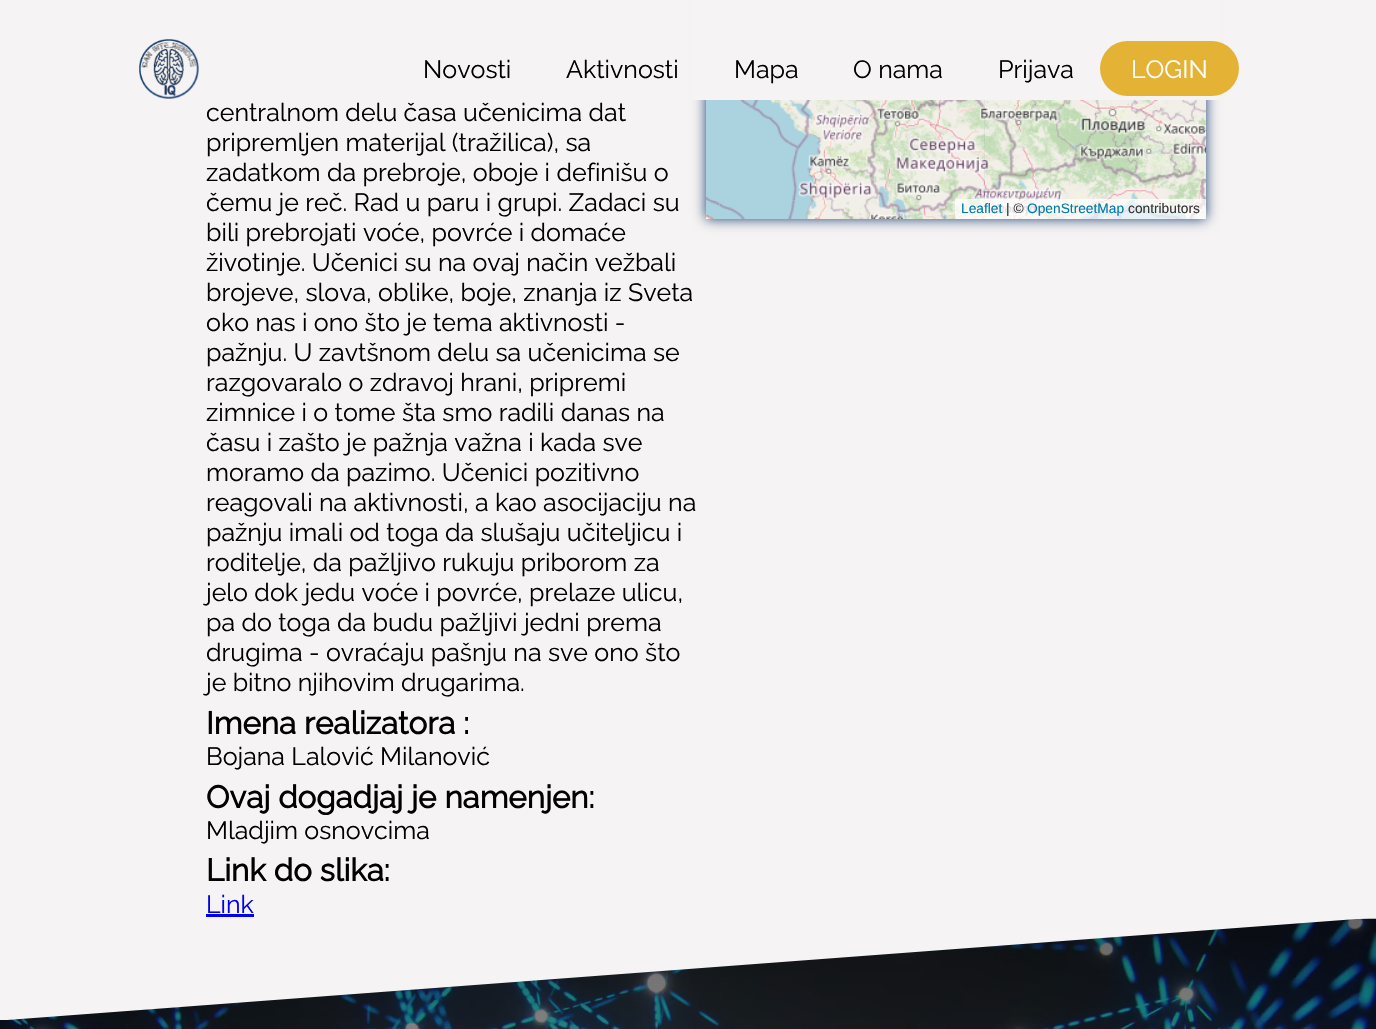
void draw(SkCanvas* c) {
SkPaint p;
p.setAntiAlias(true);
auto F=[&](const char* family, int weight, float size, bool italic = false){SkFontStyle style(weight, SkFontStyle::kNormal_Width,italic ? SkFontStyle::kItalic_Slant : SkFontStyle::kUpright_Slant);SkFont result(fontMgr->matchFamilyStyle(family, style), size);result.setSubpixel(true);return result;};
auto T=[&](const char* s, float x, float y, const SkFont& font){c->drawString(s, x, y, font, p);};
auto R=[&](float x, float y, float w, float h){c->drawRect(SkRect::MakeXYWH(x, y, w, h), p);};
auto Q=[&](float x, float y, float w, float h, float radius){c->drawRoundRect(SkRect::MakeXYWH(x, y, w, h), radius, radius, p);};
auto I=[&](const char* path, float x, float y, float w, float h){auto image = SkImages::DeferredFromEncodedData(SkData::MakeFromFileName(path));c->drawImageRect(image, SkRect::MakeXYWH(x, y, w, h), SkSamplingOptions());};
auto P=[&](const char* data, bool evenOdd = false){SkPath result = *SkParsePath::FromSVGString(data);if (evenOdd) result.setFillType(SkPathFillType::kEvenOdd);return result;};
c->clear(0xfff5f3f3);
p.setColor(0xff1b3f71);
p.setMaskFilter(SkMaskFilter::MakeBlur(kNormal_SkBlurStyle, 6));
c->drawRect(SkRect::MakeXYWH(706,-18,500,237),p);
p.setMaskFilter(nullptr);
p.setColor(0xfff5f3f3);
R(692,0,528,100);
I("1.png",139,39,60,60);
auto f1 = F("Raleway",100,25);
p.setColor(0xff000000);
T("Novosti",423,78,f1);
T("Aktivnosti",566,78,f1);
T("Mapa",734,78,f1);
T("O nama",853,78,f1);
T("Prijava",998,78,f1);
p.setColor(0xffe4b235);
Q(1100,41,139,55,27.5);
p.setColor(0xffffffff);
T("LOGIN",1131,78,f1);
p.setColor(0xff000000);
T("centralnom delu časa učenicima dat",206,121,f1);
T("pripremljen materijal (tražilica), sa",206,151,f1);
T("zadatkom da prebroje, oboje i definišu o",206,181,f1);
T("čemu je reč. Rad u paru i grupi. Zadaci su",206,211,f1);
T("bili prebrojati voće, povrće i domaće",206,241,f1);
T("životinje. Učenici su na ovaj način vežbali",206,271,f1);
T("brojeve, slova, oblike, boje, znanja iz Sveta",206,301,f1);
T("oko nas i ono što je tema aktivnosti -",206,331,f1);
T("pažnju. U zavtšnom delu sa učenicima se",206,361,f1);
T("razgovaralo o zdravoj hrani, pripremi",206,391,f1);
T("zimnice i o tome šta smo radili danas na",206,421,f1);
T("času i zašto je pažnja važna i kada sve",206,451,f1);
T("moramo da pazimo. Učenici pozitivno",206,481,f1);
T("reagovali na aktivnosti, a kao asocijaciju na",206,511,f1);
T("pažnju imali od toga da slušaju učiteljicu i",206,541,f1);
T("roditelje, da pažljivo rukuju priborom za",206,571,f1);
T("jelo dok jedu voće i povrće, prelaze ulicu,",206,601,f1);
T("pa do toga da budu pažljivi jedni prema",206,631,f1);
T("drugima - ovraćaju pašnju na sve ono što",206,661,f1);
T("je bitno njihovim drugarima.",206,691,f1);
auto f2 = F("Raleway",700,31.25);
T("Imena realizatora :",206,734,f2);
T("Bojana Lalović Milanović",206,765,f1);
T("Ovaj dogadjaj je namenjen:",206,808,f2);
T("Mladjim osnovcima",206,839,f1);
T("Link do slika:",206,881,f2);
p.setColor(0xff0000ee);
T("Link",206,913,f1);
R(206,914,48,3);
I("2.png",706,100,279,101);
I("3.png",985,100,221,101);
I("4.png",706,201,279,18);
I("5.png",985,201,221,18);
p.setColor(0xb3ffffff);
R(955,199,251,20);
auto f3 = F("Liberation Sans",400,13.75);
p.setColor(0xff0078a8);
T("Leaflet",961,213,f3);
p.setColor(0xff333333);
T("| ©",1006,213,f3);
p.setColor(0xff0078a8);
T("OpenStreetMap",1027,213,f3);
p.setColor(0xff333333);
T("contributors",1128,213,f3);
I("6.png",0,918,1376,111);
p.setColor(0xfff5f3f3);
c->drawPath(P("M0 918v102h7l1363-102z"),p);
}
